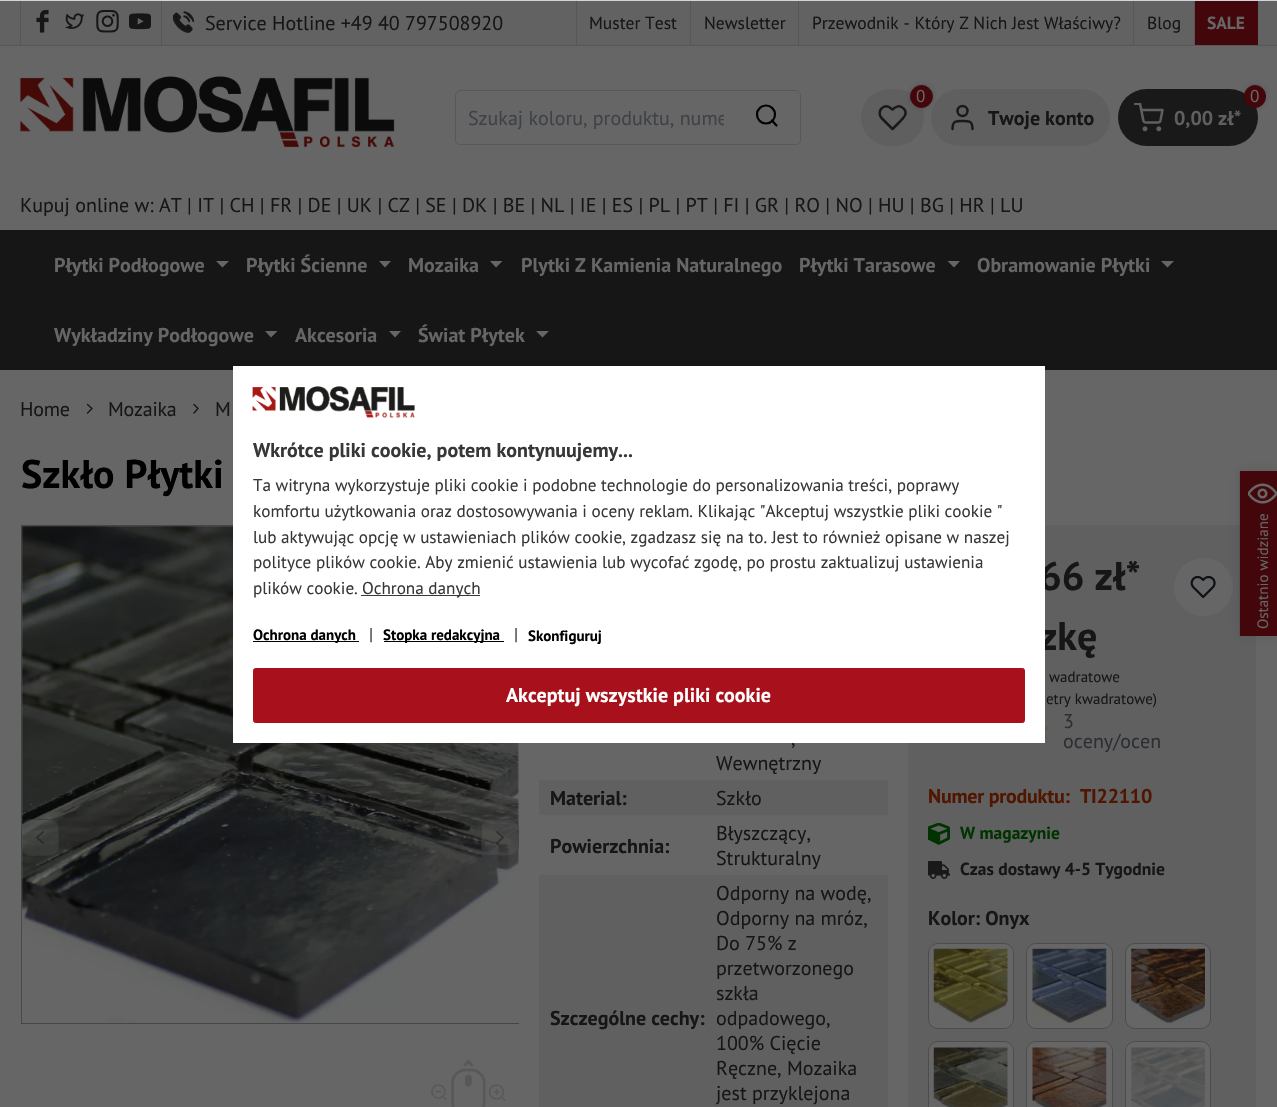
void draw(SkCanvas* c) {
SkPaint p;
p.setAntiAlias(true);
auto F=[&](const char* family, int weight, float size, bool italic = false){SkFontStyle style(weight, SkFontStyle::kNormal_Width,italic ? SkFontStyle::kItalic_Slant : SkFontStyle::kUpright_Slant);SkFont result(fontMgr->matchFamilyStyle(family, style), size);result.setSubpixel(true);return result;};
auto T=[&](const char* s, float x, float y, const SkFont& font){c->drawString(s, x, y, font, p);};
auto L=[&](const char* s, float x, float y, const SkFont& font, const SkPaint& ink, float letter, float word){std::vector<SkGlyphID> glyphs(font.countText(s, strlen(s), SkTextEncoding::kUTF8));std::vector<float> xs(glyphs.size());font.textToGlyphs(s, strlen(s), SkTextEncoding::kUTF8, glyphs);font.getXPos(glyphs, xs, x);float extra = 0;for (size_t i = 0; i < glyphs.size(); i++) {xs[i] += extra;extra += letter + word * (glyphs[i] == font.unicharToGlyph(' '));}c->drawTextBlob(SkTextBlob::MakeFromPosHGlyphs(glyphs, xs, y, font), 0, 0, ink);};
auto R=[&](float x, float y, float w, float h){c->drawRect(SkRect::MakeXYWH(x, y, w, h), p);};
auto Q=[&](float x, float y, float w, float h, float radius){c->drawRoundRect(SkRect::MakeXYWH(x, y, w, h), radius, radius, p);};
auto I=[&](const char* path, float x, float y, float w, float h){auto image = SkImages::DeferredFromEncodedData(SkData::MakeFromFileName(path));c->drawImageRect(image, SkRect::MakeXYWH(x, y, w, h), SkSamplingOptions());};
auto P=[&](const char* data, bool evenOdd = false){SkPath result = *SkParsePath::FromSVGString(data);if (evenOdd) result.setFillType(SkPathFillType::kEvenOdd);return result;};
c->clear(0xff666666);
p.setColor(0xff626262);
R(0,1,1277,44);
p.setColor(0xff575757);
R(0,45,1277,1);
R(20,0,1,45);
I("1.png",36,10,13,23);
I("2.png",65,13,19,16);
I("3.png",96,10,23,23);
I("4.png",129,13,22,17);
R(161,0,1,45);
I("5.png",173,11,22,22);
auto f1 = F("PT Sans",400,20);
p.setColor(0xff161616);
T("Service Hotline +49 40 797508920",205,30,f1);
p.setColor(0xff575757);
R(576,0,1,45);
auto f2 = F("PT Sans",400,17.5);
p.setColor(0xff161616);
T("Muster Test",589,29,f2);
p.setColor(0xff575757);
R(690,0,1,45);
p.setColor(0xff161616);
T("Newsletter",704,29,f2);
p.setColor(0xff575757);
R(798,0,1,45);
p.setColor(0xff161616);
T("Przewodnik - Który Z Nich Jest Właściwy?",812,29,f2);
p.setColor(0xff575757);
R(1133,0,1,45);
p.setColor(0xff161616);
T("Blog",1147,29,f2);
p.setColor(0xff43070b);
R(1195,1,63,44);
p.setColor(0xff575757);
R(1194,0,1,45);
auto f3 = F("PT Sans",700,17.5);
p.setColor(0xff666666);
T("SALE",1207,29,f3);
I("6.png",20,76,375,72);
p.setStroke(true);
p.setStrokeWidth(1);
p.setColor(0xff585858);
c->drawRoundRect(SkRect::MakeXYWH(455.5,90.5,345,54),4.5,4.5,p);
c->save();
c->clipRect(SkRect::MakeXYWH(468,105,256,25));
p.setStroke(false);
p.setColor(0xff3e4146);
T("Szukaj koloru, produktu, nume",468,125,f1);
c->restore();
p.setColor(0xff666666);
c->drawPath(P("M734 91h62c2 0 4 2 4 4v45c0 2-2 4-4 4h-62z"),p);
p.setStroke(true);
p.setStrokeWidth(2.2);
p.setColor(0xff000000);
c->drawCircle(766,114.5,9,p);
p.setStrokeCap(SkPaint::kRound_Cap);
p.setStrokeJoin(SkPaint::kRound_Join);
c->drawPath(P("M776.5 125.5l-4.5-5"),p);
p.setStroke(false);
p.setColor(0xff5f5f5f);
Q(861,89,63,57,28.5);
p.setStroke(true);
p.setStrokeWidth(2.5);
p.setColor(0xff191919);
c->drawPath(P("M903.5 108.5c-3.5-4-8-2-11 1l-1.5-1c-2.5-3-7-3-9.5 0c-2.5 2.5-2.5 7 0 9.5l11 11l6.5-6.5c3.5-3.5 10-9 4.5-14z"),p);
p.setStroke(false);
p.setColor(0xff5f5f5f);
Q(931,89,179,57,28.5);
p.setColor(0x2b000000);
p.setMaskFilter(SkMaskFilter::MakeBlur(kNormal_SkBlurStyle, 2.5));
c->drawRoundRect(SkRect::MakeXYWH(910,85,23,23),11.5,11.5,p);
p.setMaskFilter(nullptr);
p.setColor(0xff43070b);
c->drawCircle(921.5,96.5,11,p);
p.setStroke(true);
p.setStrokeWidth(1);
p.setStrokeCap(SkPaint::kButt_Cap);
p.setStrokeJoin(SkPaint::kMiter_Join);
c->drawCircle(921.5,96.5,11,p);
auto f4 = F("PT Sans",400,17.15);
p.setStroke(false);
p.setColor(0xff666666);
T("0",916,102,f4);
p.setStroke(true);
p.setStrokeWidth(2.5);
p.setStrokeCap(SkPaint::kRound_Cap);
p.setStrokeJoin(SkPaint::kRound_Join);
p.setColor(0xff191919);
c->drawPath(P("M972.5 129c0-8-3-8-10-8c-7 0-10 0-10 8"),p);
p.setStrokeCap(SkPaint::kButt_Cap);
p.setStrokeJoin(SkPaint::kMiter_Join);
c->drawCircle(962.5,111,5,p);
auto f5 = F("PT Sans",700,20);
p.setStroke(false);
p.setColor(0xff161616);
T("Twoje konto",988,125,f5);
p.setColor(0xff191919);
Q(1118,89,140,57,28.5);
p.setColor(0x2b000000);
p.setMaskFilter(SkMaskFilter::MakeBlur(kNormal_SkBlurStyle, 2.5));
c->drawRoundRect(SkRect::MakeXYWH(1244,85,22,23),11,11,p);
p.setMaskFilter(nullptr);
p.setColor(0xff43070b);
c->drawRoundRect(SkRect::MakeXYWH(1244.5,85.5,21,22),10.5,10.5,p);
p.setStroke(true);
p.setStrokeWidth(1);
c->drawRoundRect(SkRect::MakeXYWH(1244.5,85.5,21,22),10.5,10.5,p);
p.setStroke(false);
p.setColor(0xff666666);
T("0",1250,102,f4);
I("7.png",1134,103,30,29);
p.setColor(0xff5f5f5f);
T("0,00 zł*",1174,125,f5);
p.setColor(0xff161616);
T("Kupuj online w: AT | IT | CH | FR | DE | UK | CZ | SE | DK | BE | NL | IE | ES | PL | PT | FI | GR | RO | NO | HU | BG | HR | LU",20,212,f1);
R(0,230,1277,140);
p.setColor(0xff666666);
T("Płytki Podłogowe",54,272,f5);
c->drawPath(P("M216 261h13l-6.5 6.5z"),p);
T("Płytki Ścienne",246,272,f5);
c->drawPath(P("M379 261h12l-6 6.5z"),p);
T("Mozaika",408,272,f5);
c->drawPath(P("M490 261h12.5l-6.5 6.5z"),p);
T("Plytki Z Kamienia Naturalnego",521,272,f5);
T("Płytki Tarasowe",799,272,f5);
c->drawPath(P("M947.5 261h12.5l-6 6.5z"),p);
T("Obramowanie Płytki",977,272,f5);
c->drawPath(P("M1161 261h13l-6.5 6.5z"),p);
T("Wykładziny Podłogowe",54,342,f5);
c->drawPath(P("M265 331h12.5l-6.5 6.5z"),p);
T("Akcesoria",295,342,f5);
c->drawPath(P("M389 331h12l-6 6.5z"),p);
T("Świat Płytek",418,342,f5);
c->drawPath(P("M536 331h13l-6.5 6.5z"),p);
p.setColor(0xff161616);
L("Home",20,416,f1,p,-.25,0);
p.setStroke(true);
p.setStrokeWidth(1.4);
p.setStrokeCap(SkPaint::kRound_Cap);
p.setStrokeJoin(SkPaint::kRound_Join);
c->drawPath(P("M87.5 413l4.5-4.5l-4.5-4"),p);
p.setStroke(false);
L("Mozaika",108,416,f1,p,-.25,0);
p.setStroke(true);
c->drawPath(P("M194 413l4-4.5l-4-4"),p);
p.setStroke(false);
L("M",215,416,f1,p,-.25,0);
auto f6 = F("PT Sans",700,40);
p.setColor(0xff000000);
T("Szkło Płytki",21,488,f6);
c->save();
c->clipRect(SkRect::MakeXYWH(21,525,498,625));
p.setStroke(true);
p.setStrokeWidth(1);
p.setStrokeCap(SkPaint::kButt_Cap);
p.setStrokeJoin(SkPaint::kMiter_Join);
p.setColor(0xff464646);
c->drawRect(SkRect::MakeXYWH(21.5,525.5,498,498),p);
c->restore();
I("8.png",21,526,498,497);
p.setStroke(false);
p.setColor(0x40666666);
Q(21,819,38,37,10);
p.setStroke(true);
p.setColor(0x802b2e33);
c->drawRoundRect(SkRect::MakeXYWH(21.5,819.5,37,36),9.5,9.5,p);
p.setStrokeWidth(1.9);
p.setStrokeCap(SkPaint::kRound_Cap);
p.setStrokeJoin(SkPaint::kRound_Join);
p.setColor(0x80161616);
c->drawPath(P("M43 843l-6-5.5l6-5.5"),p);
p.setStroke(false);
p.setColor(0x40666666);
Q(481,819,38,37,10);
p.setStroke(true);
p.setStrokeWidth(1);
p.setStrokeCap(SkPaint::kButt_Cap);
p.setStrokeJoin(SkPaint::kMiter_Join);
p.setColor(0x802b2e33);
c->drawRoundRect(SkRect::MakeXYWH(481.5,819.5,37,36),9.5,9.5,p);
p.setStrokeWidth(1.9);
p.setStrokeCap(SkPaint::kRound_Cap);
p.setStrokeJoin(SkPaint::kRound_Join);
p.setColor(0x80161616);
c->drawPath(P("M497 843l6-5.5l-6-5.5"),p);
I("9.png",431,1059,75,48);
p.setStroke(false);
p.setColor(0xff161616);
T(",",791,745,f1);
T("Wewnętrzny",716,770,f1);
p.setColor(0xff606060);
R(539,780,349,35);
p.setColor(0xff161616);
T("Material:",550,805,f5);
T("Szkło",716,805,f1);
T("Powierzchnia:",550,853,f5);
T("Błyszczący,",716,840,f1);
T("Strukturalny",716,865,f1);
p.setColor(0xff606060);
R(539,875,349,232);
p.setColor(0xff161616);
T("Szczególne cechy:",550,1025,f5);
T("Odporny na wodę,",716,900,f1);
T("Odporny na mróz,",716,925,f1);
T("Do 75% z",716,950,f1);
T("przetworzonego",716,975,f1);
T("szkła",716,1000,f1);
T("odpadowego,",716,1025,f1);
T("100% Cięcie",716,1050,f1);
T("Ręczne, Mozaika",716,1075,f1);
T("jest przyklejona",716,1100,f1);
p.setColor(0xff606060);
R(908,525,348,582);
p.setColor(0xff161616);
T("66 zł*",1039,590,f6);
T("zkę",1039,650,f6);
auto f7 = F("PT Sans",400,15);
T("wadratowe",1049,682,f7);
T("etry kwadratowe)",1046,704,f7);
I("10.png",1045,726,5,13);
I("11.png",1045,726,1,13);
p.setColor(0xff2b2e33);
T("3",1063,728,f1);
T("oceny/ocen",1063,748,f1);
p.setColor(0xff501602);
L("Numer produktu:",928,803,f5,p,-.25,0);
L("TI22110",1080,803,f5,p,-.25,0);
I("12.png",928,823,22,22);
p.setColor(0xff003300);
T("W magazynie",960,839,f3);
I("13.png",928,861,22,18);
p.setColor(0xff161616);
T("Czas dostawy 4-5 Tygodnie",960,875,f3);
p.setColor(0xff666666);
Q(1174,558,59,58,29);
I("14.png",1190,575,26,23);
p.setColor(0xff161616);
T("Kolor: Onyx",928,925,f5);
p.setColor(0xff666666);
c->drawRoundRect(SkRect::MakeXYWH(928.5,943.5,85,85),9.5,9.5,p);
p.setStroke(true);
p.setStrokeWidth(1);
p.setStrokeCap(SkPaint::kButt_Cap);
p.setStrokeJoin(SkPaint::kMiter_Join);
p.setColor(0xff4c4c4c);
c->drawRoundRect(SkRect::MakeXYWH(928.5,943.5,85,85),9.5,9.5,p);
I("15.png",933,948,75,75);
p.setStroke(false);
p.setColor(0xff666666);
c->drawRoundRect(SkRect::MakeXYWH(1026.5,943.5,86,85),9.5,9.5,p);
p.setStroke(true);
p.setColor(0xff4c4c4c);
c->drawRoundRect(SkRect::MakeXYWH(1026.5,943.5,86,85),9.5,9.5,p);
I("16.png",1032,948,75,75);
p.setStroke(false);
p.setColor(0xff666666);
c->drawRoundRect(SkRect::MakeXYWH(1125.5,943.5,85,85),9.5,9.5,p);
p.setStroke(true);
p.setColor(0xff4c4c4c);
c->drawRoundRect(SkRect::MakeXYWH(1125.5,943.5,85,85),9.5,9.5,p);
I("17.png",1131,948,74,75);
p.setStroke(false);
p.setColor(0xff666666);
c->drawRoundRect(SkRect::MakeXYWH(928.5,1041.5,85,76),9.5,9.5,p);
p.setStroke(true);
p.setColor(0xff4c4c4c);
c->drawRoundRect(SkRect::MakeXYWH(928.5,1041.5,85,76),9.5,9.5,p);
I("18.png",933,1047,75,60);
p.setStroke(false);
p.setColor(0xff666666);
c->drawRoundRect(SkRect::MakeXYWH(1026.5,1041.5,86,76),9.5,9.5,p);
p.setStroke(true);
p.setColor(0xff4c4c4c);
c->drawRoundRect(SkRect::MakeXYWH(1026.5,1041.5,86,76),9.5,9.5,p);
I("19.png",1032,1047,75,60);
p.setStroke(false);
p.setColor(0xff666666);
c->drawRoundRect(SkRect::MakeXYWH(1125.5,1041.5,85,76),9.5,9.5,p);
p.setStroke(true);
p.setColor(0xff4c4c4c);
c->drawRoundRect(SkRect::MakeXYWH(1125.5,1041.5,85,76),9.5,9.5,p);
I("20.png",1131,1047,74,60);
p.setStroke(false);
p.setColor(0xffd1d5db);
R(0,0,1277,1);
p.setColor(0xffffffff);
R(233,366,812,377);
I("21.png",252,386,163,32);
p.setColor(0xff373737);
T("Wkrótce pliki cookie, potem kontynuujemy...",253,457,f5);
T("Ta witryna wykorzystuje pliki cookie i podobne technologie do personalizowania treści, poprawy",253,491,f4);
T("komfortu użytkowania oraz dostosowywania i oceny reklam. Klikając \"Akceptuj wszystkie pliki cookie \"",253,517,f4);
T("lub aktywując opcję w ustawieniach plików cookie, zgadzasz się na to. Jest to również opisane w naszej",253,543,f4);
T("polityce plików cookie. Aby zmienić ustawienia lub wycofać zgodę, po prostu zaktualizuj ustawienia",253,568,f4);
T("plików cookie.",253,594,f4);
R(361,595,119,1);
T("Ochrona danych",362,594,f4);
p.setColor(0xff000000);
R(253,641,106,1);
auto f8 = F("PT Sans",700,15);
T("Ochrona danych",253,640,f8);
p.setColor(0xff373737);
T("|",369,640,f4);
p.setColor(0xff000000);
R(384,641,120,1);
T("Stopka redakcyjna",383,640,f8);
p.setColor(0xff373737);
T("|",514,640,f4);
p.setColor(0xff000000);
T("Skonfiguruj",528,641,f8);
p.setColor(0xffa8111c);
c->drawRoundRect(SkRect::MakeXYWH(253.5,668.5,771,54),2,2,p);
p.setStroke(true);
c->drawRoundRect(SkRect::MakeXYWH(253.5,668.5,771,54),2,2,p);
p.setStroke(false);
p.setColor(0xffffffff);
T("Akceptuj wszystkie pliki cookie",506,702,f5);
p.setColor(0x1a000000);
p.setMaskFilter(SkMaskFilter::MakeBlur(kNormal_SkBlurStyle, 6));
c->drawRect(SkRect::MakeXYWH(1240,471,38,165),p);
p.setMaskFilter(nullptr);
p.setColor(0xff43070b);
c->drawPath(P("M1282 636h-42v-165h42c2 0 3 2 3 3v160c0 1-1 2-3 2z"),p);
p.setStroke(true);
p.setStrokeWidth(1.2);
c->drawPath(P("M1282.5 635.5h-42v-163.5h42c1 0 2 1 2 2v159.5c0 1-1 2-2 2z"),p);
I("22.png",1248,483,29,21);
p.setStroke(false);
p.setColor(0xff666666);
c->save();
c->rotate(-90,1268,629);
T("Ostatnio widziane",1268,629,f7);
c->restore();
}
